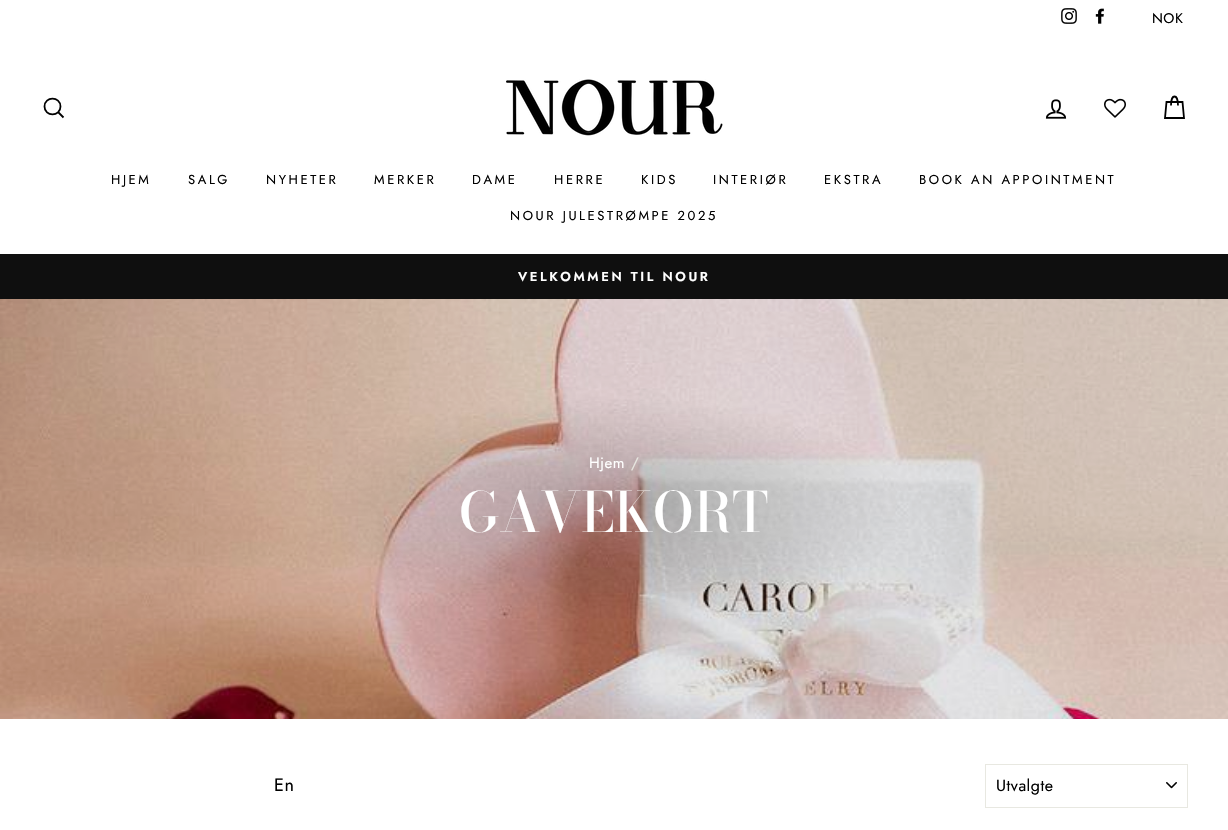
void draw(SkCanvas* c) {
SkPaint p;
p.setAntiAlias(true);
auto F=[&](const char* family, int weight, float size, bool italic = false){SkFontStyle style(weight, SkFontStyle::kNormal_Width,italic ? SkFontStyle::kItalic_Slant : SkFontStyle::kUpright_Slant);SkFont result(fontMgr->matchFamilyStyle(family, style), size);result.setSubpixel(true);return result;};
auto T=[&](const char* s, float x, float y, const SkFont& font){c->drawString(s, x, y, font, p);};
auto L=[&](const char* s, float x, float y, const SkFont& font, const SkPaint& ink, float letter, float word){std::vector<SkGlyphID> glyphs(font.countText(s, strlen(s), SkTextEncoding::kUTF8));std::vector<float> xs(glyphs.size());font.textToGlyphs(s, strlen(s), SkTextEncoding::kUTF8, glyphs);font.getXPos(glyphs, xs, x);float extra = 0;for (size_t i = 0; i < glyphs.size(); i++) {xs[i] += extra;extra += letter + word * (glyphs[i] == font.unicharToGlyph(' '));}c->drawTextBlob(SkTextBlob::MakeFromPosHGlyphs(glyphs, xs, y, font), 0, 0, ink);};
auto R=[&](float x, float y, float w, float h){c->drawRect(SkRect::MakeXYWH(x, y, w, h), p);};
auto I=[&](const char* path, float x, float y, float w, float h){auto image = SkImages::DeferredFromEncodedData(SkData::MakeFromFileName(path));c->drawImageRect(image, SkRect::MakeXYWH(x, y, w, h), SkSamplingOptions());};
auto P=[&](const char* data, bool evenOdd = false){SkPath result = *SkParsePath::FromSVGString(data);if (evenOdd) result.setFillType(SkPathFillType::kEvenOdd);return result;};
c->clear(0xffffffff);
I("1.png",1061,8,16,16);
I("2.png",1095,8,9,16);
auto f1 = F("Jost",400,14);
p.setColor(0xff000000);
L("NOK",1152,23,f1,p,.5,0);
p.setStroke(true);
p.setStrokeWidth(1.8);
c->drawPath(P("M60.5 106.5c0 10.5-16 10.5-16 0c0-10.5 16-10.5 16 0zm3 11l-5-5"),p);
I("3.png",506,79,217,57);
I("4.png",1045,99,22,20);
I("5.png",1104,98,22,20);
c->drawPath(P("M1171 105.5c0-12 7-12 7 0m-11.5-3.5h16l1.5 16h-19z"),p);
auto f2 = F("Jost",400,13);
p.setStroke(false);
L("HJEM",111,184,f2,p,2.6,0);
L("SALG",188,184,f2,p,2.6,0);
L("NYHETER",266,184,f2,p,2.6,0);
L("MERKER",374,184,f2,p,2.6,0);
L("DAME",472,184,f2,p,2.6,0);
L("HERRE",554,184,f2,p,2.6,0);
L("KIDS",641,184,f2,p,2.6,0);
L("INTERIØR",713,184,f2,p,2.6,0);
L("EKSTRA",824,184,f2,p,2.6,0);
L("BOOK AN APPOINTMENT",919,184,f2,p,2.6,0);
L("NOUR JULESTRØMPE 2025",510,220,f2,p,2.6,0);
p.setColor(0xff0f0f0f);
R(0,254,1228,45);
auto f3 = F("Jost",600,13);
p.setColor(0xffffffff);
L("VELKOMMEN TIL NOUR",518,281,f3,p,2.6,0);
I("6.png",0,299,1228,420);
auto f4 = F("Jost",400,15);
L("Hjem",589,468,f4,p,.5,0);
p.setColor(0xffe8e8e1);
L("/",631,468,f4,p,.5,0);
auto f5 = F("Bodoni Moda",500,55);
p.setColor(0xffffffff);
T("GAVEKORT",459,532,f5);
auto f6 = F("Jost",400,18);
p.setColor(0xff000000);
L("En",274,791,f6,p,.5,0);
I("7.png",1166,782,11,7);
p.setStroke(true);
p.setStrokeWidth(1);
p.setColor(0xffe8e8e1);
c->drawRect(SkRect::MakeXYWH(985.5,764.5,202,43),p);
auto f7 = F("Jost",400,16);
p.setStroke(false);
p.setColor(0xff000000);
L("Utvalgte",996,791,f7,p,.5,0);
}
